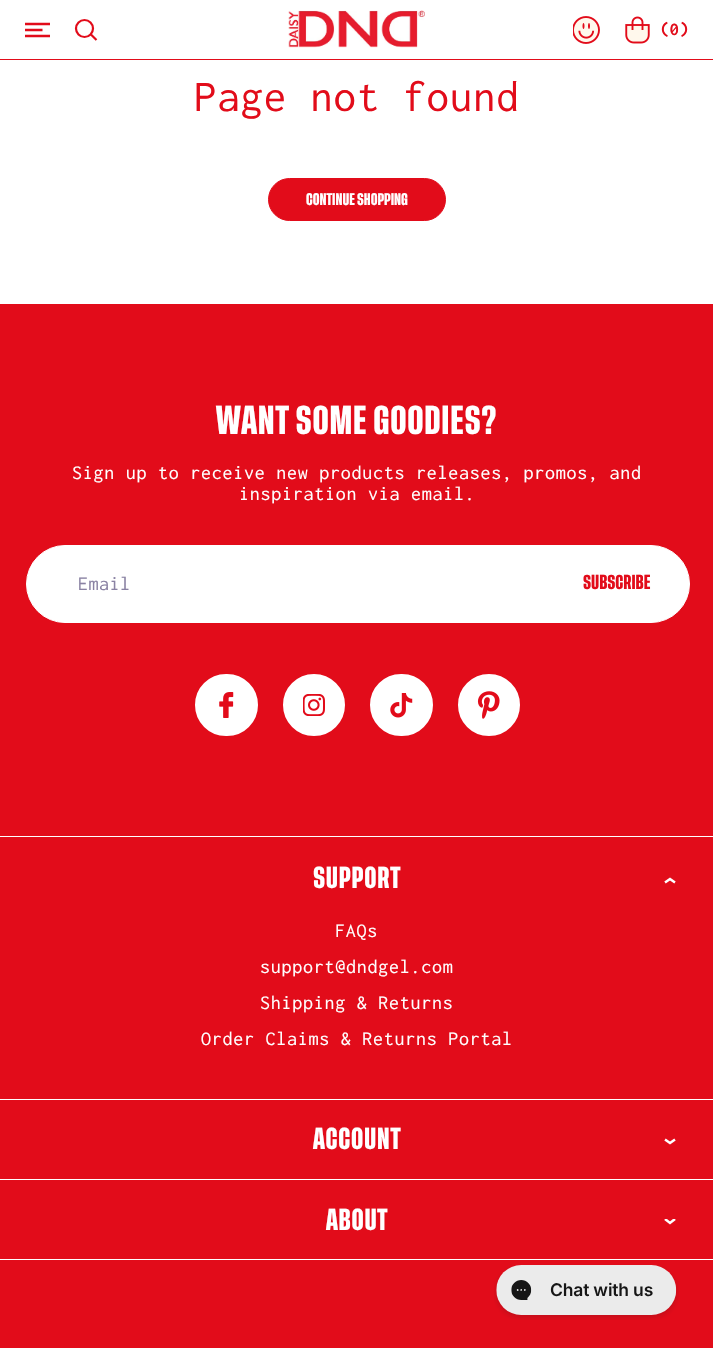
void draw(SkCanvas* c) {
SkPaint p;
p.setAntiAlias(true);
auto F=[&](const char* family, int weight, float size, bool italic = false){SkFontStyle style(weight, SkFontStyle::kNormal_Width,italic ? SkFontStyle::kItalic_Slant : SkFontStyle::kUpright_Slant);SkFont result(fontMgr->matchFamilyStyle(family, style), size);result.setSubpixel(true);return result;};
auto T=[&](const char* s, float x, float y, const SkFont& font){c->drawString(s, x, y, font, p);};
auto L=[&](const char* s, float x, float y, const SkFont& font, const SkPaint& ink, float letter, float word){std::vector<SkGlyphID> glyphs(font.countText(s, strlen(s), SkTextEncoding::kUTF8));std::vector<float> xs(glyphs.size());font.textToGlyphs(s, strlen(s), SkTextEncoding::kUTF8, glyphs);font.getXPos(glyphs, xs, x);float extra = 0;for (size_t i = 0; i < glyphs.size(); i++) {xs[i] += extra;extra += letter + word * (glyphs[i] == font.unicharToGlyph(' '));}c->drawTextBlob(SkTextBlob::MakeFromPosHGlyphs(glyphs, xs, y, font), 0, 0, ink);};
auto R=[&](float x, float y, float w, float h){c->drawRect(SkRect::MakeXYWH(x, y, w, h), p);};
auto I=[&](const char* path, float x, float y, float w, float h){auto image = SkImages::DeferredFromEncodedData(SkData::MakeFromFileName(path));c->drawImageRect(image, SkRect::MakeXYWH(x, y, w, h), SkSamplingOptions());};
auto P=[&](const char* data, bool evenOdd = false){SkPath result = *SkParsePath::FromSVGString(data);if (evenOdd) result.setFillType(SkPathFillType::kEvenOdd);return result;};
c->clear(0xffffffff);
p.setColor(0xffe20c1a);
R(0,59,713,1);
p.setStroke(true);
p.setStrokeWidth(2.5);
p.setColor(0xffe20b1a);
c->drawPath(P("M25 24h25m-25 6h17.5m-17.5 6h25"),p);
p.setStrokeWidth(2.2);
c->drawCircle(84.5,28.5,8.5,p);
c->drawPath(P("M91 34.5l5.5 5.5"),p);
I("1.png",288,10,137,38);
I("2.png",573,16,27,28);
I("3.png",625,16,25,28);
auto f1 = F("Inconsolata",700,18);
p.setStroke(false);
p.setColor(0xffe20c1a);
L("(0)",660,35,f1,p,.75,0);
auto f2 = F("Inconsolata",400,45);
L("Page not found",194,111,f2,p,.75,0);
c->drawRoundRect(SkRect::MakeXYWH(268.5,178.5,177,42),21,21,p);
p.setStroke(true);
p.setStrokeWidth(1);
p.setColor(0xffe20b1a);
c->drawRoundRect(SkRect::MakeXYWH(268.5,178.5,177,42),21,21,p);
auto f3 = F("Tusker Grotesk",600,12.5);
p.setStroke(false);
p.setColor(0xffffffff);
T("CONTINUE SHOPPING",306,205,f3);
p.setColor(0xffe20c1a);
R(0,304,713,1044);
auto f4 = F("Tusker Grotesk",600,30);
p.setColor(0xffffffff);
L("WANT SOME GOODIES?",216,434,f4,p,.75,0);
auto f5 = F("Inconsolata",400,20);
L("Sign up to receive new products releases, promos, and",72,479,f5,p,.75,0);
L("inspiration via email.",239,500,f5,p,.75,0);
c->drawRoundRect(SkRect::MakeXYWH(26.5,545.5,663,77),38.5,38.5,p);
p.setStroke(true);
c->drawRoundRect(SkRect::MakeXYWH(26.5,545.5,663,77),38.5,38.5,p);
p.setStroke(false);
p.setColor(0xff8a82a3);
L("Email",78,590,f5,p,.5,0);
auto f6 = F("Tusker Grotesk",600,15);
p.setColor(0xffe20c1a);
T("SUBSCRIBE",583,589,f6);
p.setColor(0xffffffff);
c->drawRoundRect(SkRect::MakeXYWH(196.5,675.5,60,59),29.5,29.5,p);
p.setStroke(true);
p.setStrokeWidth(3);
c->drawRoundRect(SkRect::MakeXYWH(196.5,675.5,60,59),29.5,29.5,p);
I("4.png",219,692,15,26);
p.setStroke(false);
c->drawCircle(314,705,29.5,p);
p.setStroke(true);
c->drawCircle(314,705,29.5,p);
I("5.png",303,694,22,22);
p.setStroke(false);
c->drawRoundRect(SkRect::MakeXYWH(371.5,675.5,60,59),29.5,29.5,p);
p.setStroke(true);
c->drawRoundRect(SkRect::MakeXYWH(371.5,675.5,60,59),29.5,29.5,p);
I("6.png",390,693,23,25);
p.setStroke(false);
c->drawCircle(489,705,29.5,p);
p.setStroke(true);
c->drawCircle(489,705,29.5,p);
I("7.png",477,691,23,28);
p.setStroke(false);
R(0,836,713,1);
auto f7 = F("Tusker Grotesk",600,22.5);
L("SUPPORT",313,888,f7,p,.75,0);
p.setStroke(true);
p.setStrokeWidth(2.5);
c->drawPath(P("M665 882.5l5-3.5l5 3.5"),p);
p.setStroke(false);
L("FAQs",335,937,f5,p,.75,0);
L("support@dndgel.com",260,973,f5,p,.75,0);
L("Shipping & Returns",260,1009,f5,p,.75,0);
L("Order Claims & Returns Portal",201,1045,f5,p,.75,0);
R(0,1099,713,1);
L("ACCOUNT",313,1149,f7,p,.75,0);
p.setStroke(true);
c->drawPath(P("M675 1139.5l-5 3.5l-5-3.5"),p);
p.setStroke(false);
R(0,1179,713,1);
L("ABOUT",326,1230,f7,p,.75,0);
c->save();
c->clipRect(SkRect::MakeXYWH(664,1219,12,7));
p.setStroke(true);
c->drawPath(P("M675 1219l-5 4l-5-4"),p);
c->restore();
p.setStroke(false);
R(0,1259,713,1);
I("8.png",494,1265,185,55);
}
